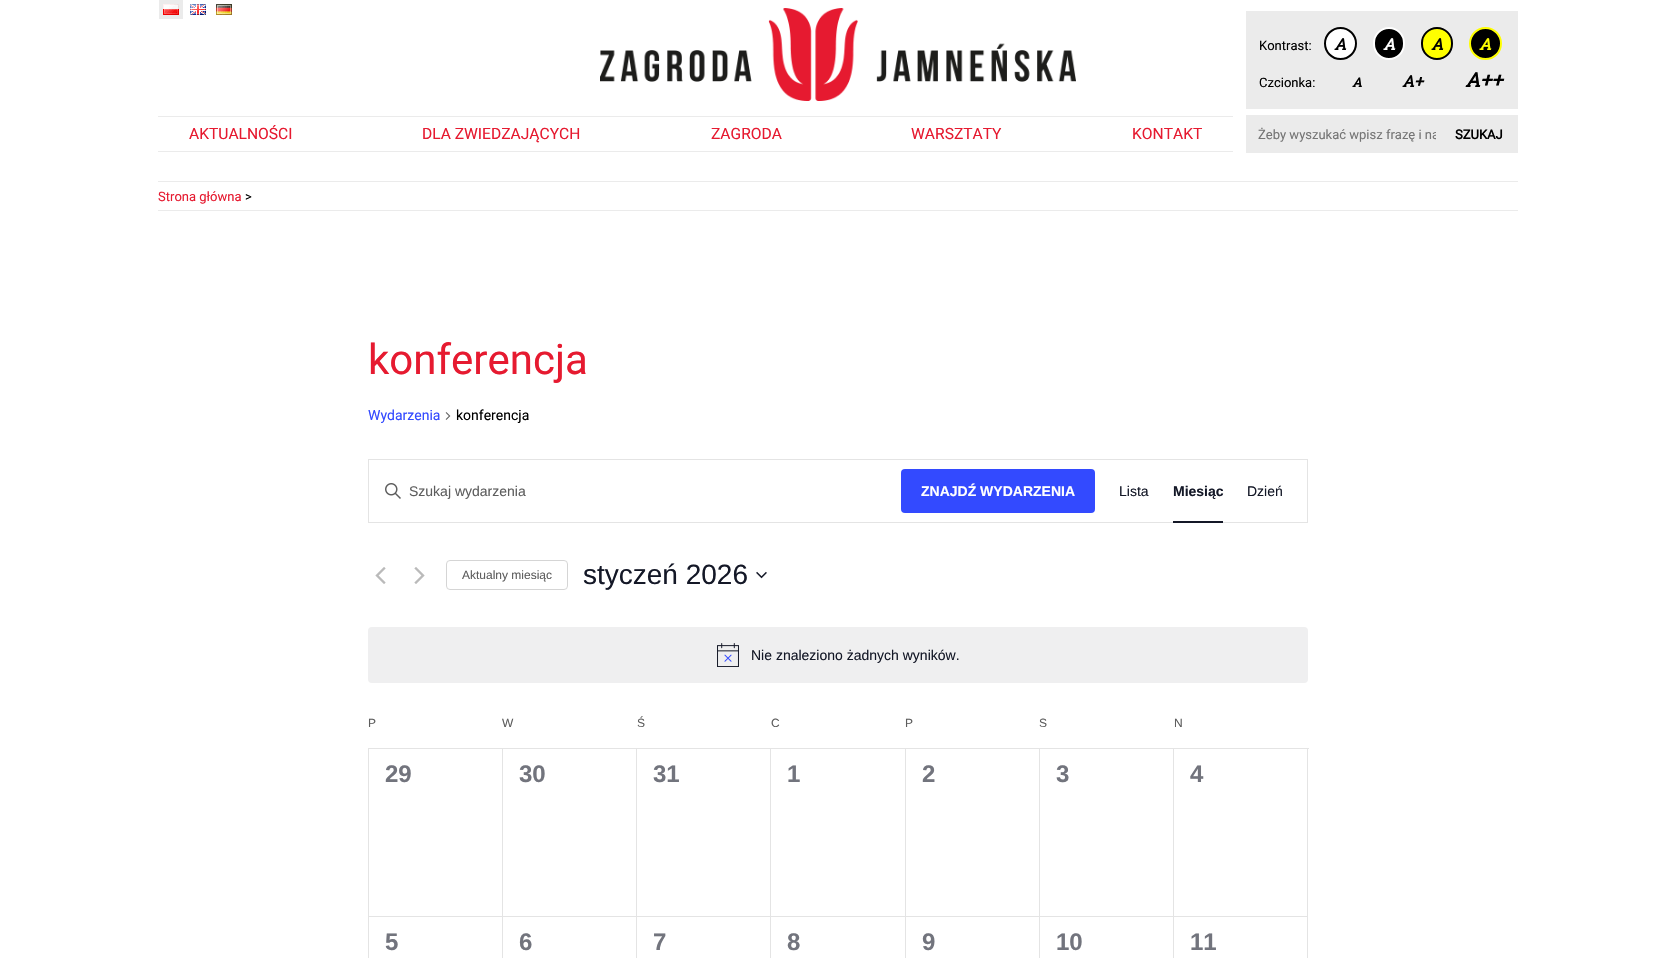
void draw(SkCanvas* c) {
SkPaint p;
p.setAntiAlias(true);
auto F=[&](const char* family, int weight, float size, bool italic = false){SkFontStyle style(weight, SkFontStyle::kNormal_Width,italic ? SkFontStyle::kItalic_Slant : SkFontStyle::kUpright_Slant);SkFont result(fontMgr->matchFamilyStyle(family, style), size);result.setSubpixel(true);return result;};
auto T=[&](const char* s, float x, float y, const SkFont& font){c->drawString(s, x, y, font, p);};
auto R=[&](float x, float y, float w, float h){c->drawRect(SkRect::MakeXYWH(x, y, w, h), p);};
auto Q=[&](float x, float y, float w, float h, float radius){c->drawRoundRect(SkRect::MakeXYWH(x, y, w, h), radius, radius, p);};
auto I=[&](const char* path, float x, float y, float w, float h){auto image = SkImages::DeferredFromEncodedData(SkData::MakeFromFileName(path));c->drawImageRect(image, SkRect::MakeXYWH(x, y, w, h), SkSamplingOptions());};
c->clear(0xffffffff);
p.setColor(0xffebebeb);
R(159,0,24,19);
I("1.png",163,4,16,11);
I("2.png",190,4,16,11);
I("3.png",216,4,16,11);
I("4.png",600,8,476,93);
R(1246,11,272,98);
auto f1 = F("Roboto",400,13);
p.setColor(0xff000000);
T("Kontrast:",1259,50,f1);
p.setColor(0xffffffff);
c->drawCircle(1340.5,43.5,15.5,p);
p.setStroke(true);
p.setStrokeWidth(2);
p.setColor(0xff000000);
c->drawCircle(1340.5,43.5,15.5,p);
auto f2 = F("Roboto Slab",700,16,true);
p.setStroke(false);
T("A",1334,50,f2);
c->drawRoundRect(SkRect::MakeXYWH(1374,28,30,31),15,15,p);
p.setStroke(true);
p.setColor(0xffffffff);
c->drawRoundRect(SkRect::MakeXYWH(1374,28,30,31),15,15,p);
p.setStroke(false);
T("A",1383,50,f2);
p.setColor(0xffffff00);
c->drawRoundRect(SkRect::MakeXYWH(1422,28,30,31),15,15,p);
p.setStroke(true);
p.setColor(0xff000000);
c->drawRoundRect(SkRect::MakeXYWH(1422,28,30,31),15,15,p);
p.setStroke(false);
T("A",1431,50,f2);
c->drawCircle(1485.5,43.5,15.5,p);
p.setStroke(true);
p.setColor(0xffffff00);
c->drawCircle(1485.5,43.5,15.5,p);
p.setStroke(false);
T("A",1479,50,f2);
p.setColor(0xff000000);
T("Czcionka:",1259,87,f1);
auto f3 = F("Roboto Slab",700,13,true);
T("A",1352,87,f3);
T("A+",1402,87,f2);
auto f4 = F("Roboto Slab",700,20,true);
T("A++",1465,87,f4);
p.setColor(0xffebebeb);
R(158,116,1075,1);
R(158,151,1075,1);
auto f5 = F("Roboto",400,15.6);
p.setColor(0xffe61a30);
T("AKTUALNOŚCI",189,139,f5);
T("DLA ZWIEDZAJĄCYCH",422,139,f5);
T("ZAGRODA",711,139,f5);
T("WARSZTATY",911,139,f5);
T("KONTAKT",1132,139,f5);
p.setColor(0xffebebeb);
R(1246,115,272,38);
c->save();
c->clipRect(SkRect::MakeXYWH(1258,127,178,15));
p.setColor(0xff757575);
T("Żeby wyszukać wpisz frazę i na",1258,139,f1);
c->restore();
auto f6 = F("Roboto",700,13);
p.setColor(0xff000000);
T("SZUKAJ",1455,139,f6);
p.setColor(0xffebebeb);
R(158,181,1360,1);
R(158,210,1360,1);
p.setColor(0xffe61a30);
T("Strona główna",158,201,f1);
p.setColor(0xff000000);
T(">",245,201,f1);
auto f7 = F("Roboto",400,42);
p.setColor(0xffe61a30);
T("konferencja",368,374,f7);
auto f8 = F("Roboto",400,14);
p.setColor(0xff334aff);
T("Wydarzenia",368,420,f8);
I("5.png",445,412,6,8);
p.setColor(0xff000000);
T("konferencja",456,420,f8);
p.setStroke(true);
p.setStrokeWidth(1);
p.setColor(0xffe4e4e4);
c->drawRect(SkRect::MakeXYWH(368.5,459.5,939,63),p);
I("6.png",385,483,16,16);
auto f9 = F("Liberation Sans",400,14);
p.setStroke(false);
p.setColor(0xff5d5d5d);
T("Szukaj wydarzenia",409,496,f9);
p.setColor(0xff334aff);
Q(901,469,194,44,4);
auto f10 = F("Liberation Sans",700,14);
p.setColor(0xffffffff);
T("ZNAJDŹ WYDARZENIA",921,496,f10);
p.setColor(0xff141827);
T("Lista",1119,496,f9);
T("Miesiąc",1173,496,f10);
R(1173,521,50,2);
T("Dzień",1247,496,f9);
I("7.png",375,567,11,17);
I("8.png",414,567,11,17);
p.setStroke(true);
p.setColor(0xffd5d5d5);
c->drawRoundRect(SkRect::MakeXYWH(446.5,560.5,121,29),3.5,3.5,p);
auto f11 = F("Liberation Sans",400,12);
p.setStroke(false);
p.setColor(0xff5d5d5d);
T("Aktualny miesiąc",462,579,f11);
auto f12 = F("Liberation Sans",400,28);
p.setColor(0xff141827);
T("styczeń 2026",583,584,f12);
I("9.png",756,571,11,8);
p.setColor(0xffefeff0);
Q(368,627,940,56,4);
I("10.png",717,643,22,24);
p.setColor(0xff141827);
T("Nie znaleziono żadnych wyników.",751,660,f9);
p.setColor(0xff5d5d5d);
T("P",368,727,f11);
T("W",502,727,f11);
T("Ś",637,727,f11);
T("C",771,727,f11);
T("P",905,727,f11);
T("S",1039,727,f11);
T("N",1174,727,f11);
p.setColor(0xffe4e4e4);
R(368,748,941,1);
R(368,749,1,209);
R(502,749,1,209);
R(369,916,134,1);
auto f13 = F("Liberation Sans",700,24);
p.setColor(0xff72747d);
T("29",385,782,f13);
p.setColor(0xffe4e4e4);
R(636,749,1,209);
R(503,916,134,1);
p.setColor(0xff72747d);
T("30",519,782,f13);
p.setColor(0xffe4e4e4);
R(770,749,1,209);
R(637,916,134,1);
p.setColor(0xff72747d);
T("31",653,782,f13);
p.setColor(0xffe4e4e4);
R(905,749,1,209);
R(771,916,135,1);
p.setColor(0xff72747d);
T("1",787,782,f13);
p.setColor(0xffe4e4e4);
R(1039,749,1,209);
R(906,916,134,1);
p.setColor(0xff72747d);
T("2",922,782,f13);
p.setColor(0xffe4e4e4);
R(1173,749,1,209);
R(1040,916,134,1);
p.setColor(0xff72747d);
T("3",1056,782,f13);
p.setColor(0xffe4e4e4);
R(1307,749,1,209);
R(1174,916,134,1);
p.setColor(0xff72747d);
T("4",1190,782,f13);
T("5",385,950,f13);
T("6",519,950,f13);
T("7",653,950,f13);
T("8",787,950,f13);
T("9",922,950,f13);
T("10",1056,950,f13);
T("11",1190,950,f13);
}
